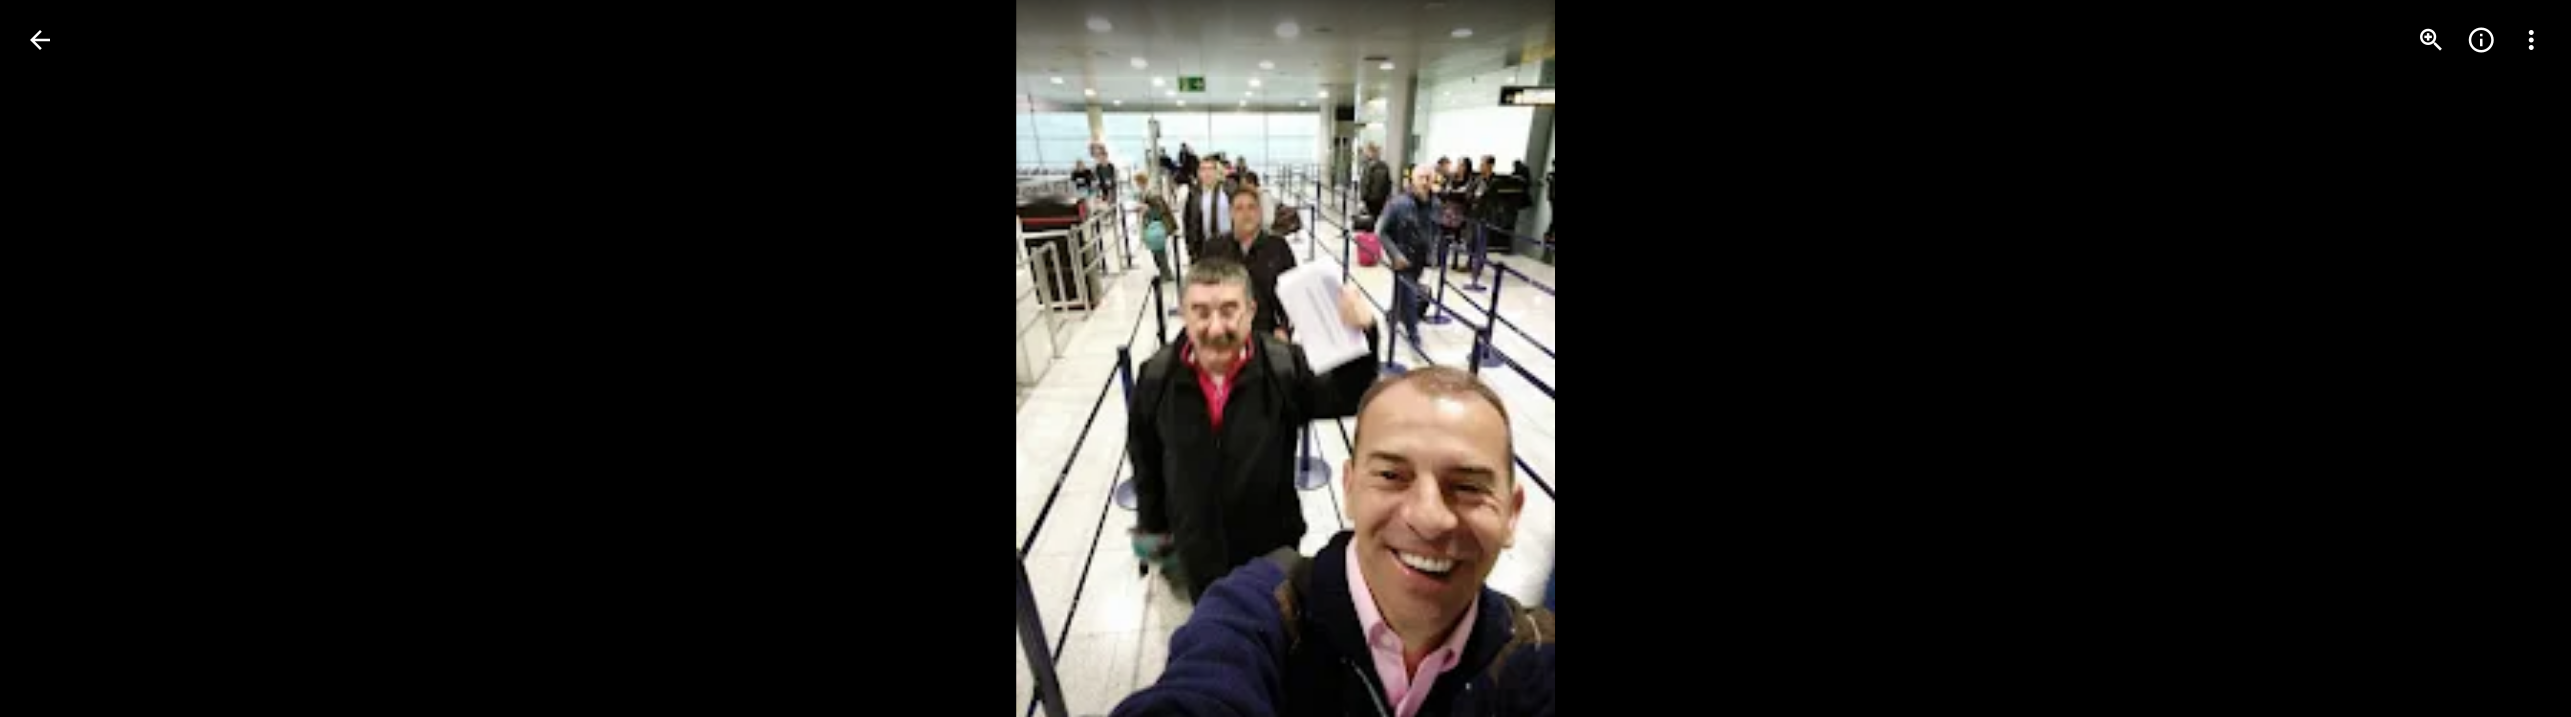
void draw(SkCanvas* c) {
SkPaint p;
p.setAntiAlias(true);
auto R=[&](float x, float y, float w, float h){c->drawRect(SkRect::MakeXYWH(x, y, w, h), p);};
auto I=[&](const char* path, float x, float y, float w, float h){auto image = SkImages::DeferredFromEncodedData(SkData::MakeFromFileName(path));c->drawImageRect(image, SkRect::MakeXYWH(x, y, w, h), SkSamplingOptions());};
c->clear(0xff000000);
I("5.png",1016,0,539,717);
{
const SkColor colors[] = {0x99000000,0x00000000};
const float stops[] = {0,1};
const SkPoint ends[] = {{1286,0}, {1286,80}};
p.setShader(SkGradientShader::MakeLinear(ends, colors, stops, 2, SkTileMode::kClamp));
p.setAlpha(255);
}
R(1016,0,539,77);
I("1.png",30,30,20,20);
I("2.png",2420,28,22,23);
I("3.png",2468,27,26,26);
I("4.png",2528,30,6,20);
}
